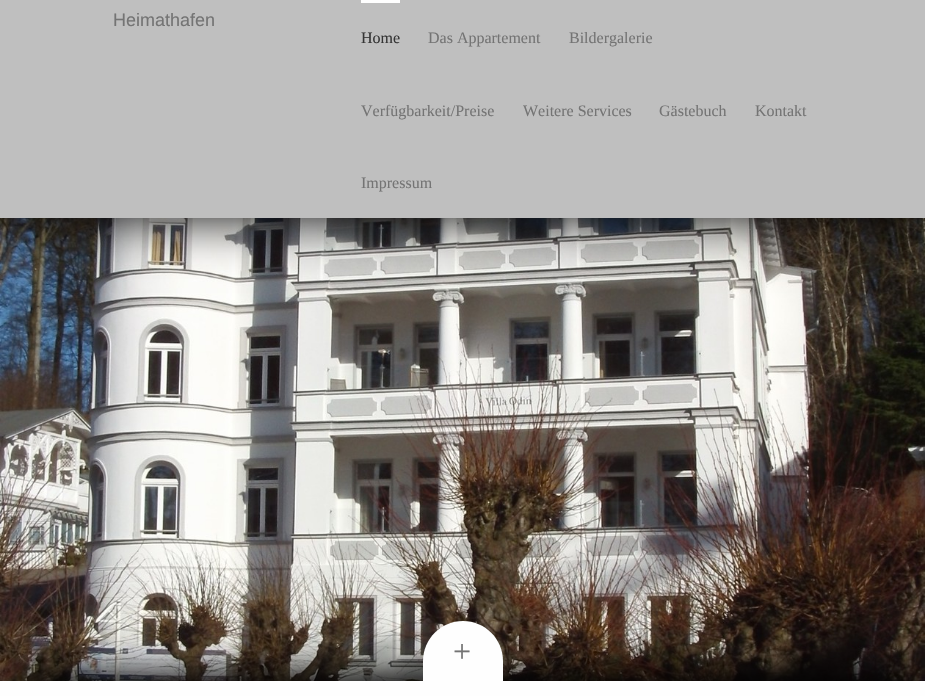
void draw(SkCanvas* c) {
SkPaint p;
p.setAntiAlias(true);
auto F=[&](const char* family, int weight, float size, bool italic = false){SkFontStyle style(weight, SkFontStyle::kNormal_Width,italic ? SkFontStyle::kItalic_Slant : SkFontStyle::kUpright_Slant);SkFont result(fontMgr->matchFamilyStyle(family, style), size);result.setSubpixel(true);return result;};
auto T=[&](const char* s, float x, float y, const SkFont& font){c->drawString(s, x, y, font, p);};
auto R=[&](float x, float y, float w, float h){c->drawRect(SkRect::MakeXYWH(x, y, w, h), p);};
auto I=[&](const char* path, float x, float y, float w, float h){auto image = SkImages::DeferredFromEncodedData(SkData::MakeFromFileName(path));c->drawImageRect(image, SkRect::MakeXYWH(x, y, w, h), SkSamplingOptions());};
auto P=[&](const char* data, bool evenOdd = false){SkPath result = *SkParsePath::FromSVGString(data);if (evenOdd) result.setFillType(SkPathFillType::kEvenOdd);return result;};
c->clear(0xffffffff);
I("1.png",0,218,925,463);
p.setColor(0xff000000);
p.setMaskFilter(SkMaskFilter::MakeBlur(kNormal_SkBlurStyle, 25));
c->drawRect(SkRect::MakeXYWH(4,0,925,218),p);
p.setMaskFilter(nullptr);
p.setColor(0xffbfbfbf);
R(0,0,925,218);
auto f1 = F("Liberation Sans",400,18);
p.setColor(0xff747474);
T("Heimathafen",113,26,f1);
p.setColor(0xfffefefe);
R(361,0,39,3);
auto f2 = F("Liberation Serif",400,16);
p.setColor(0xff353535);
T("Home",361,43,f2);
p.setColor(0xff747474);
T("Das Appartement",428,43,f2);
T("Bildergalerie",569,43,f2);
T("Verfügbarkeit/Preise",361,116,f2);
T("Weitere Services",523,116,f2);
T("Gästebuch",659,116,f2);
T("Kontakt",755,116,f2);
T("Impressum",361,188,f2);
p.setColor(0xff000000);
p.setMaskFilter(SkMaskFilter::MakeBlur(kNormal_SkBlurStyle, 20));
c->drawRect(SkRect::MakeXYWH(10,671,905,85),p);
p.setMaskFilter(nullptr);
p.setColor(0xfffefefe);
R(0,681,925,15);
c->drawPath(P("M463 621c22 0 40 18 40 40v20h-80v-20c0-22 18-40 40-40z"),p);
auto f3 = F("Liberation Serif",400,32);
p.setColor(0xff747474);
T("+",453,662,f3);
}
